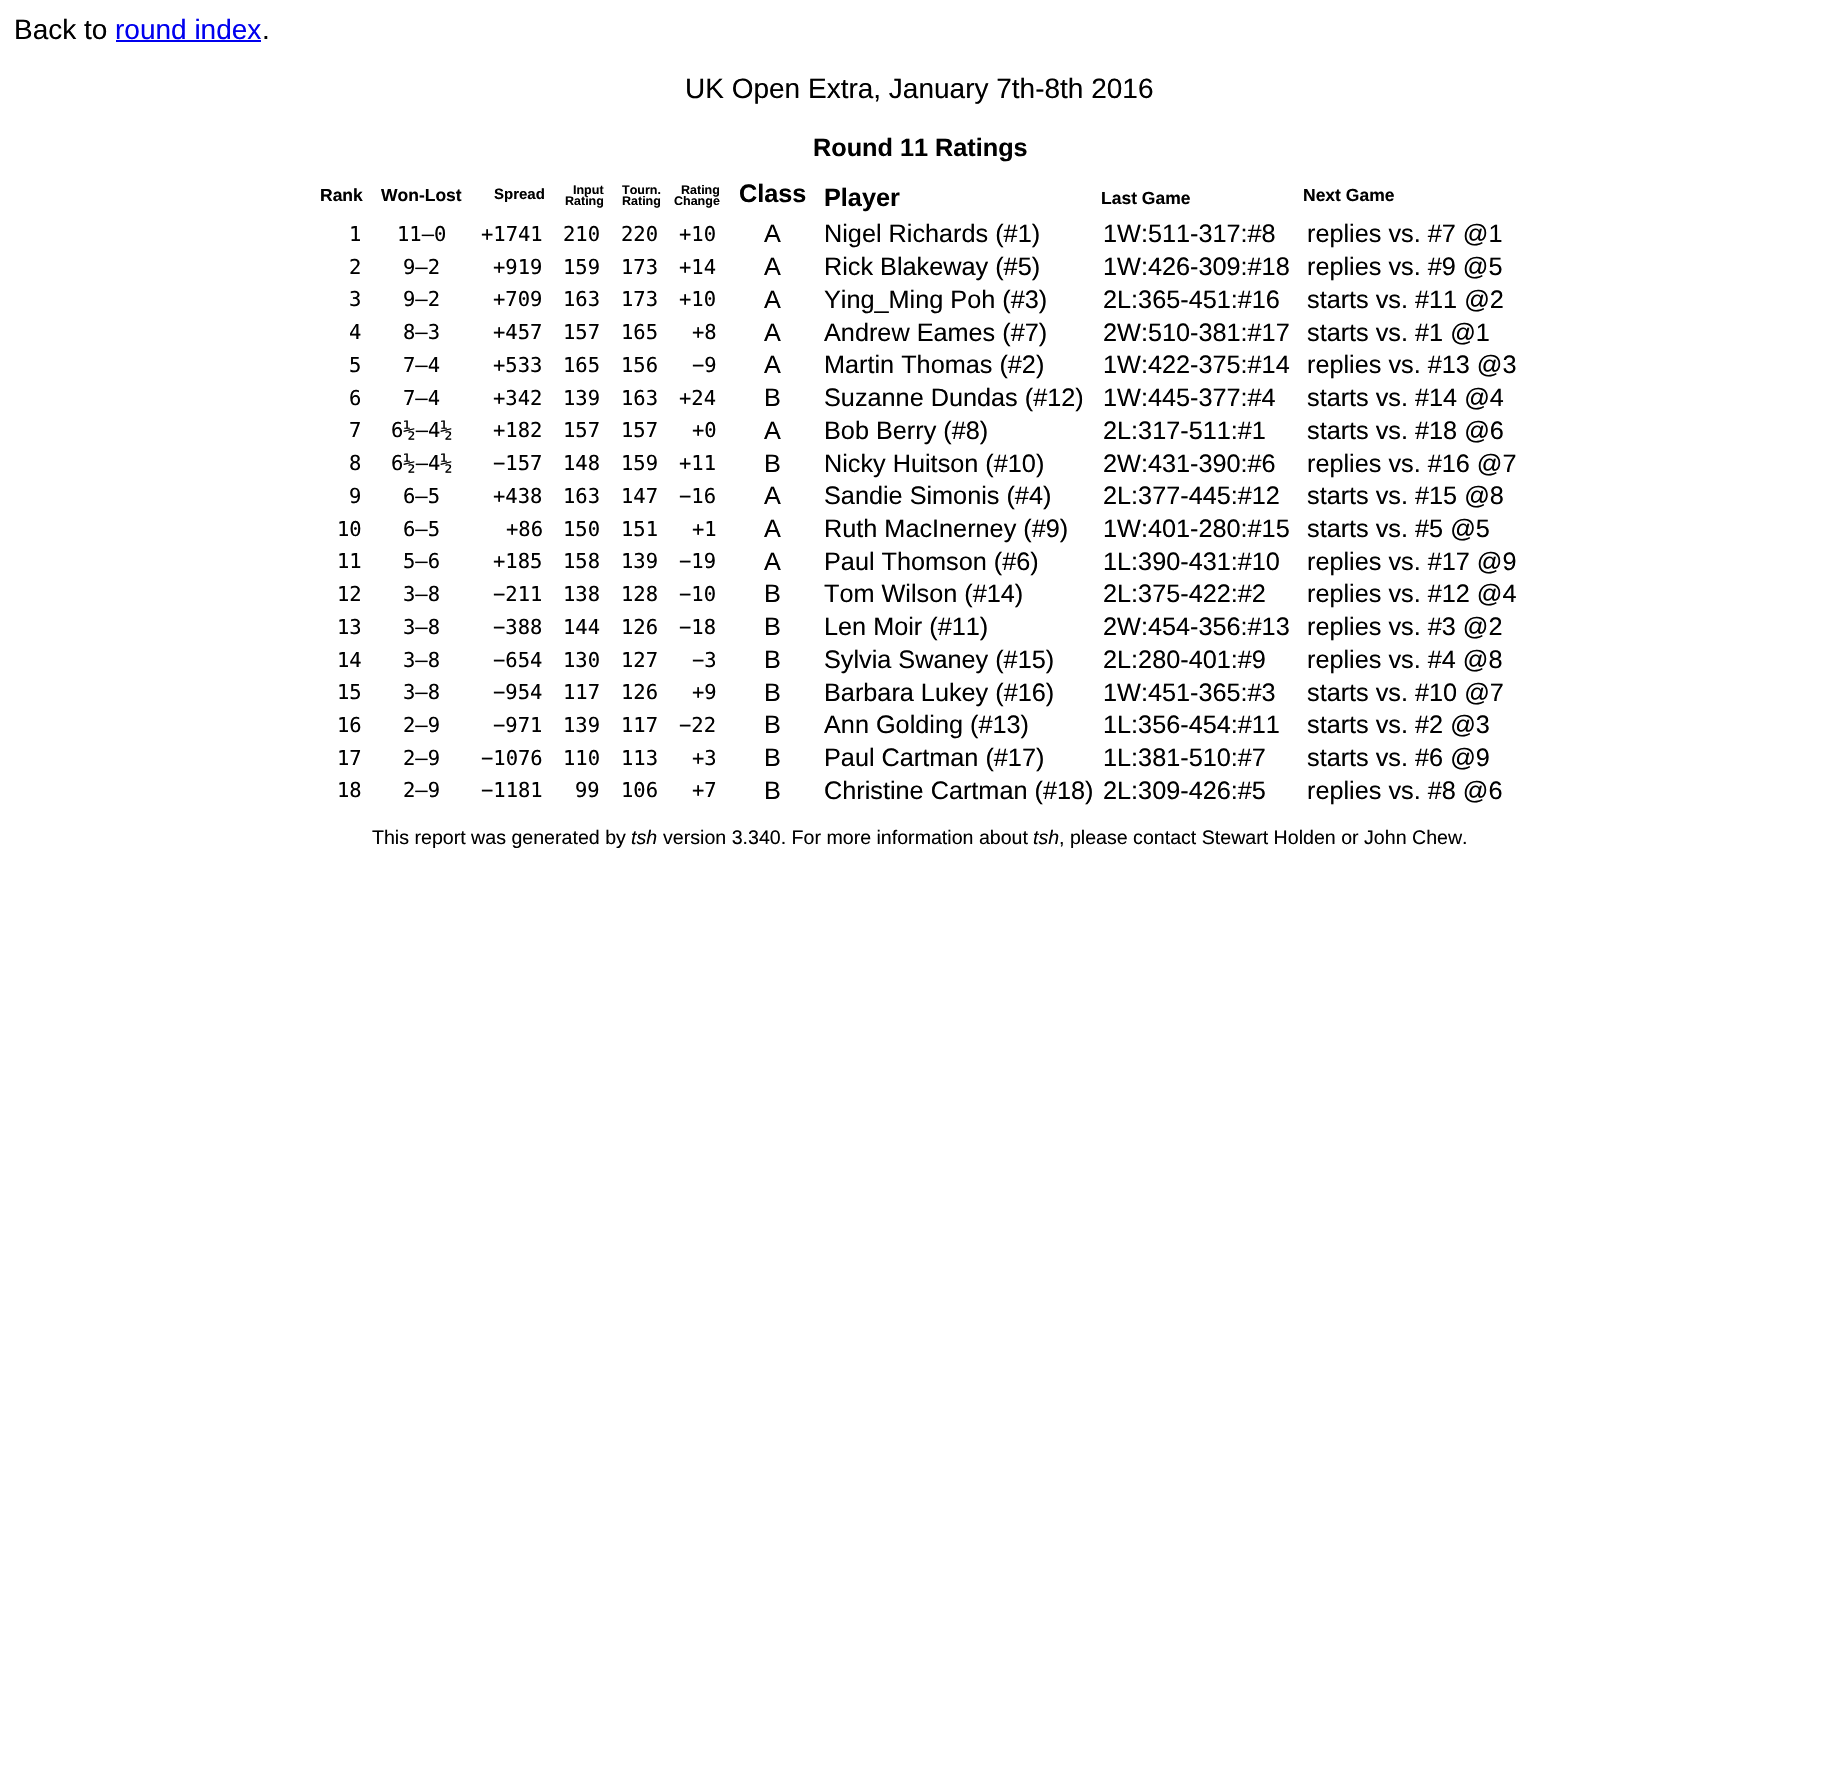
void draw(SkCanvas* c) {
SkPaint p;
p.setAntiAlias(true);
auto F=[&](const char* family, int weight, float size, bool italic = false){SkFontStyle style(weight, SkFontStyle::kNormal_Width,italic ? SkFontStyle::kItalic_Slant : SkFontStyle::kUpright_Slant);SkFont result(fontMgr->matchFamilyStyle(family, style), size);result.setSubpixel(true);return result;};
auto T=[&](const char* s, float x, float y, const SkFont& font){c->drawString(s, x, y, font, p);};
auto R=[&](float x, float y, float w, float h){c->drawRect(SkRect::MakeXYWH(x, y, w, h), p);};
c->clear(0xffffffff);
auto f1 = F("Liberation Sans",400,28);
p.setColor(0xff000000);
T("Back to",14,39,f1);
p.setColor(0xff0000ee);
T("round index",115,39,f1);
R(116,40,145,2);
p.setColor(0xff000000);
T(".",262,39,f1);
T("UK Open Extra, January 7th-8th 2016",685,98,f1);
auto f2 = F("Liberation Sans",700,25.25);
T("Round 11 Ratings",813,156,f2);
auto f3 = F("Liberation Sans",700,17.5);
T("Rank",320,201,f3);
T("Won-Lost",381,201,f3);
auto f4 = F("Liberation Sans",700,15);
T("Spread",494,199,f4);
auto f5 = F("Liberation Sans",700,12.5);
T("Input",573,194,f5);
T("Rating",565,205,f5);
T("Tourn.",622,194,f5);
T("Rating",622,205,f5);
T("Rating",681,194,f5);
T("Change",674,205,f5);
T("Class",739,202,f2);
T("Player",824,206,f2);
T("Last Game",1101,204,f3);
T("Next Game",1303,201,f3);
auto f6 = F("DejaVu Sans Mono",400,20.5);
T("1",349,241,f6);
T("11–0",397,241,f6);
T("+1741",481,241,f6);
T("210",563,241,f6);
T("220",621,241,f6);
T("+10",679,241,f6);
auto f7 = F("Liberation Sans",400,25.25);
T("A",764,242,f7);
T("Nigel Richards (#1)",824,242,f7);
T("1W:511-317:#8",1103,242,f7);
T("replies vs. #7 @1",1307,242,f7);
T("2",349,274,f6);
T("9–2",403,274,f6);
T("+919",493,274,f6);
T("159",563,274,f6);
T("173",621,274,f6);
T("+14",679,274,f6);
T("A",764,275,f7);
T("Rick Blakeway (#5)",824,275,f7);
T("1W:426-309:#18",1103,275,f7);
T("replies vs. #9 @5",1307,275,f7);
T("3",349,306,f6);
T("9–2",403,306,f6);
T("+709",493,306,f6);
T("163",563,306,f6);
T("173",621,306,f6);
T("+10",679,306,f6);
T("A",764,308,f7);
T("Ying_Ming Poh (#3)",824,308,f7);
T("2L:365-451:#16",1103,308,f7);
T("starts vs. #11 @2",1307,308,f7);
T("4",349,339,f6);
T("8–3",403,339,f6);
T("+457",493,339,f6);
T("157",563,339,f6);
T("165",621,339,f6);
T("+8",692,339,f6);
T("A",764,341,f7);
T("Andrew Eames (#7)",824,341,f7);
T("2W:510-381:#17",1103,341,f7);
T("starts vs. #1 @1",1307,341,f7);
T("5",349,372,f6);
T("7–4",403,372,f6);
T("+533",493,372,f6);
T("165",563,372,f6);
T("156",621,372,f6);
T("−9",692,372,f6);
T("A",764,373,f7);
T("Martin Thomas (#2)",824,373,f7);
T("1W:422-375:#14",1103,373,f7);
T("replies vs. #13 @3",1307,373,f7);
T("6",349,405,f6);
T("7–4",403,405,f6);
T("+342",493,405,f6);
T("139",563,405,f6);
T("163",621,405,f6);
T("+24",679,405,f6);
T("B",764,406,f7);
T("Suzanne Dundas (#12)",824,406,f7);
T("1W:445-377:#4",1103,406,f7);
T("starts vs. #14 @4",1307,406,f7);
T("7",349,437,f6);
T("6½–4½",391,437,f6);
T("+182",493,437,f6);
T("157",563,437,f6);
T("157",621,437,f6);
T("+0",692,437,f6);
T("A",764,439,f7);
T("Bob Berry (#8)",824,439,f7);
T("2L:317-511:#1",1103,439,f7);
T("starts vs. #18 @6",1307,439,f7);
T("8",349,470,f6);
T("6½–4½",391,470,f6);
T("−157",493,470,f6);
T("148",563,470,f6);
T("159",621,470,f6);
T("+11",679,470,f6);
T("B",764,472,f7);
T("Nicky Huitson (#10)",824,472,f7);
T("2W:431-390:#6",1103,472,f7);
T("replies vs. #16 @7",1307,472,f7);
T("9",349,503,f6);
T("6–5",403,503,f6);
T("+438",493,503,f6);
T("163",563,503,f6);
T("147",621,503,f6);
T("−16",679,503,f6);
T("A",764,504,f7);
T("Sandie Simonis (#4)",824,504,f7);
T("2L:377-445:#12",1103,504,f7);
T("starts vs. #15 @8",1307,504,f7);
T("10",337,536,f6);
T("6–5",403,536,f6);
T("+86",506,536,f6);
T("150",563,536,f6);
T("151",621,536,f6);
T("+1",692,536,f6);
T("A",764,537,f7);
T("Ruth MacInerney (#9)",824,537,f7);
T("1W:401-280:#15",1103,537,f7);
T("starts vs. #5 @5",1307,537,f7);
T("11",337,568,f6);
T("5–6",403,568,f6);
T("+185",493,568,f6);
T("158",563,568,f6);
T("139",621,568,f6);
T("−19",679,568,f6);
T("A",764,570,f7);
T("Paul Thomson (#6)",824,570,f7);
T("1L:390-431:#10",1103,570,f7);
T("replies vs. #17 @9",1307,570,f7);
T("12",337,601,f6);
T("3–8",403,601,f6);
T("−211",493,601,f6);
T("138",563,601,f6);
T("128",621,601,f6);
T("−10",679,601,f6);
T("B",764,602,f7);
T("Tom Wilson (#14)",824,602,f7);
T("2L:375-422:#2",1103,602,f7);
T("replies vs. #12 @4",1307,602,f7);
T("13",337,634,f6);
T("3–8",403,634,f6);
T("−388",493,634,f6);
T("144",563,634,f6);
T("126",621,634,f6);
T("−18",679,634,f6);
T("B",764,635,f7);
T("Len Moir (#11)",824,635,f7);
T("2W:454-356:#13",1103,635,f7);
T("replies vs. #3 @2",1307,635,f7);
T("14",337,667,f6);
T("3–8",403,667,f6);
T("−654",493,667,f6);
T("130",563,667,f6);
T("127",621,667,f6);
T("−3",692,667,f6);
T("B",764,668,f7);
T("Sylvia Swaney (#15)",824,668,f7);
T("2L:280-401:#9",1103,668,f7);
T("replies vs. #4 @8",1307,668,f7);
T("15",337,699,f6);
T("3–8",403,699,f6);
T("−954",493,699,f6);
T("117",563,699,f6);
T("126",621,699,f6);
T("+9",692,699,f6);
T("B",764,701,f7);
T("Barbara Lukey (#16)",824,701,f7);
T("1W:451-365:#3",1103,701,f7);
T("starts vs. #10 @7",1307,701,f7);
T("16",337,732,f6);
T("2–9",403,732,f6);
T("−971",493,732,f6);
T("139",563,732,f6);
T("117",621,732,f6);
T("−22",679,732,f6);
T("B",764,733,f7);
T("Ann Golding (#13)",824,733,f7);
T("1L:356-454:#11",1103,733,f7);
T("starts vs. #2 @3",1307,733,f7);
T("17",337,765,f6);
T("2–9",403,765,f6);
T("−1076",481,765,f6);
T("110",563,765,f6);
T("113",621,765,f6);
T("+3",692,765,f6);
T("B",764,766,f7);
T("Paul Cartman (#17)",824,766,f7);
T("1L:381-510:#7",1103,766,f7);
T("starts vs. #6 @9",1307,766,f7);
T("18",337,797,f6);
T("2–9",403,797,f6);
T("−1181",481,797,f6);
T("99",575,797,f6);
T("106",621,797,f6);
T("+7",692,797,f6);
T("B",764,799,f7);
T("Christine Cartman (#18)",824,799,f7);
T("2L:309-426:#5",1103,799,f7);
T("replies vs. #8 @6",1307,799,f7);
auto f8 = F("Liberation Sans",400,19.6);
T("This report was generated by",372,844,f8);
auto f9 = F("Liberation Sans",400,19.6,true);
T("tsh",631,844,f9);
T("version 3.340. For more information about",663,844,f8);
T("tsh",1033,844,f9);
T(", please contact Stewart Holden or John Chew.",1059,844,f8);
}
